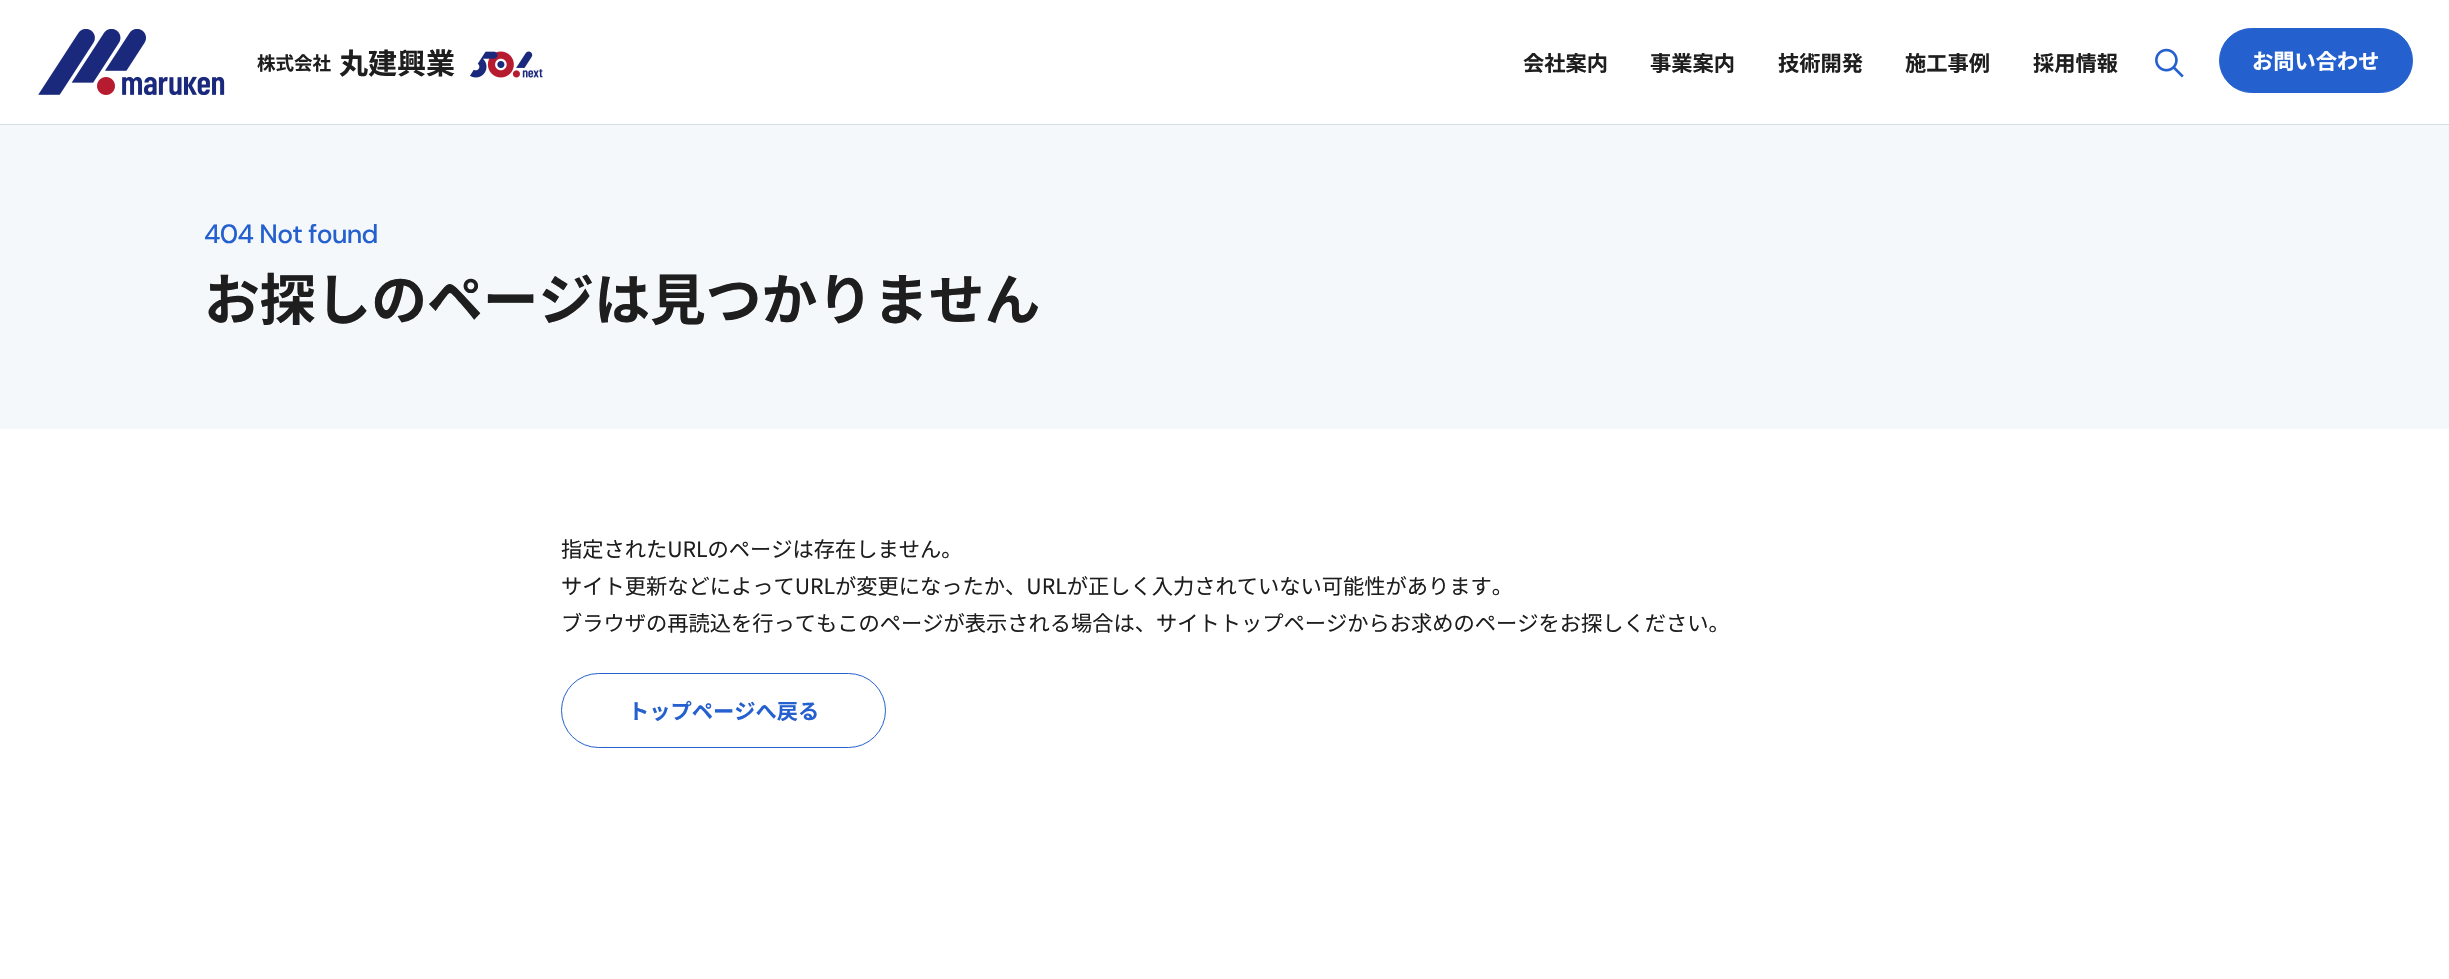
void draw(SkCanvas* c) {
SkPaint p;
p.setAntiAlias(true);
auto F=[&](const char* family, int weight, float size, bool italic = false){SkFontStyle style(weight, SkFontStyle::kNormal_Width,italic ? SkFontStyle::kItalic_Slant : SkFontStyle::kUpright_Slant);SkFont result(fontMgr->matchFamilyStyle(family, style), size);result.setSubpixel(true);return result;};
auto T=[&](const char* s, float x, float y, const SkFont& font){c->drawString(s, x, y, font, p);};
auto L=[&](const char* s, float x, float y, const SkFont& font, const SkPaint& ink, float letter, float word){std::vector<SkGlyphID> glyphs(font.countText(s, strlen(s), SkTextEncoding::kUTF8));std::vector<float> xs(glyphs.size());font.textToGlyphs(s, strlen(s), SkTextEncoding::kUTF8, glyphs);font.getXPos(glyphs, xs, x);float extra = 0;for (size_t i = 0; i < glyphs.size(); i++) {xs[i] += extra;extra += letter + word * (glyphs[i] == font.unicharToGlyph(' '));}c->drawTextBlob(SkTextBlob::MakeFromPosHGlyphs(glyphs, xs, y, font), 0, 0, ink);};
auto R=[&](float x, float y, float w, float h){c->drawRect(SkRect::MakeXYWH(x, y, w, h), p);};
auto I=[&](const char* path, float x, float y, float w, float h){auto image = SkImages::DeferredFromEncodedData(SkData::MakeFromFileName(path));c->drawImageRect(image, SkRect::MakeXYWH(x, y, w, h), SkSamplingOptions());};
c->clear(0xffffffff);
I("1.png",38,29,187,66);
auto f1 = F("Noto Sans JP",700,18.5);
p.setColor(0xff1e1e1e);
T("株式会社",257,70,f1);
auto f2 = F("Noto Sans JP",700,29);
T("丸建興業",339,74,f2);
I("2.png",470,51,73,27);
auto f3 = F("Noto Sans JP",700,21.25);
T("会社案内",1523,71,f3);
T("事業案内",1650,71,f3);
T("技術開発",1778,71,f3);
T("施工事例",1905,71,f3);
T("採用情報",2033,71,f3);
I("3.png",2155,48,29,30);
p.setColor(0xff2560cf);
c->drawRoundRect(SkRect::MakeXYWH(2219.5,28.5,193,64),32,32,p);
p.setStroke(true);
p.setStrokeWidth(1);
c->drawRoundRect(SkRect::MakeXYWH(2219.5,28.5,193,64),32,32,p);
p.setStroke(false);
p.setColor(0xffffffff);
T("お問い合わせ",2252,69,f3);
p.setColor(0xffd5dfe6);
R(0,124,2449,1);
p.setColor(0xfff5f8fb);
R(0,125,2449,304);
auto f4 = F("DM Sans",500,26.5);
p.setColor(0xff2560cf);
L("404 Not found",204,243,f4,p,-.7,0);
auto f5 = F("Noto Sans JP",700,55.75);
p.setColor(0xff1e1e1e);
T("お探しのページは見つかりません",204,320,f5);
auto f6 = F("Noto Sans JP",400,21.25);
T("指定されたURLのページは存在しません。",561,557,f6);
T("サイト更新などによってURLが変更になったか、URLが正しく入力されていない可能性があります。",561,594,f6);
T("ブラウザの再読込を行ってもこのページが表示される場合は、サイトトップページからお求めのページをお探しください。",561,631,f6);
p.setStroke(true);
p.setColor(0xff2560cf);
c->drawRoundRect(SkRect::MakeXYWH(561.5,673.5,324,74),37,37,p);
p.setStroke(false);
T("トップページへ戻る",628,719,f3);
}
